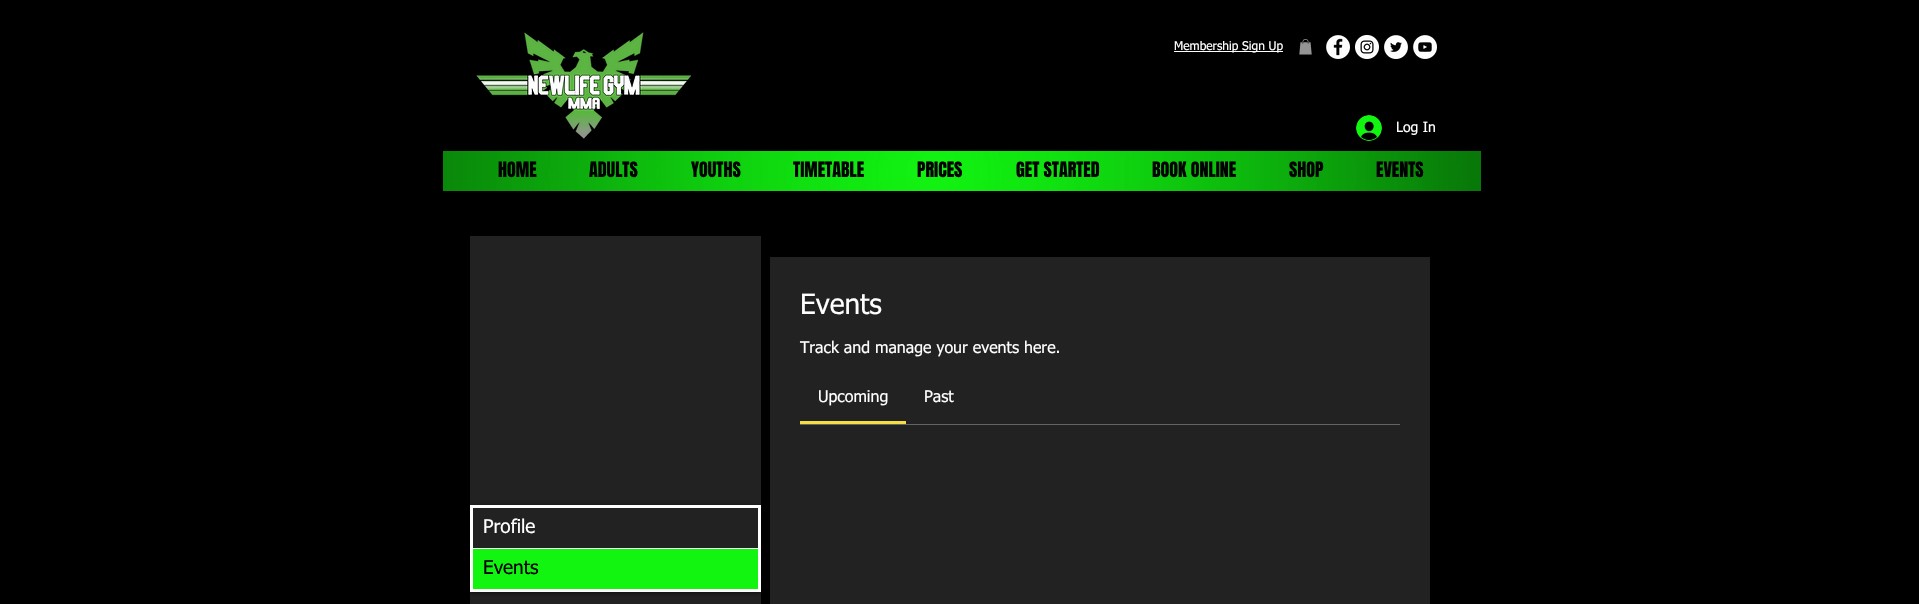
void draw(SkCanvas* c) {
SkPaint p;
p.setAntiAlias(true);
auto F=[&](const char* family, int weight, float size, bool italic = false){SkFontStyle style(weight, SkFontStyle::kNormal_Width,italic ? SkFontStyle::kItalic_Slant : SkFontStyle::kUpright_Slant);SkFont result(fontMgr->matchFamilyStyle(family, style), size);result.setSubpixel(true);return result;};
auto T=[&](const char* s, float x, float y, const SkFont& font){c->drawString(s, x, y, font, p);};
auto R=[&](float x, float y, float w, float h){c->drawRect(SkRect::MakeXYWH(x, y, w, h), p);};
auto I=[&](const char* path, float x, float y, float w, float h){auto image = SkImages::DeferredFromEncodedData(SkData::MakeFromFileName(path));c->drawImageRect(image, SkRect::MakeXYWH(x, y, w, h), SkSamplingOptions());};
auto P=[&](const char* data, bool evenOdd = false){SkPath result = *SkParsePath::FromSVGString(data);if (evenOdd) result.setFillType(SkPathFillType::kEvenOdd);return result;};
c->clear(0xff000000);
I("1.png",476,32,216,107);
p.setColor(0xffffffff);
R(1174,51,109,1);
auto f1 = F("tahoma",400,12);
T("Membership Sign Up",1174,50,f1);
I("2.png",1299,39,13,16);
I("3.png",1326,35,24,24);
I("4.png",1355,35,24,24);
I("5.png",1384,35,24,24);
I("6.png",1413,35,24,24);
I("7.png",1356,115,26,26);
auto f2 = F("tahoma",400,14);
T("Log In",1396,132,f2);
I("8.png",443,151,1038,40);
auto f3 = F("Anton",400,18);
p.setColor(0xff000000);
T("HOME",498,177,f3);
T("ADULTS",589,177,f3);
T("YOUTHS",691,177,f3);
T("TIMETABLE",793,177,f3);
T("PRICES",917,177,f3);
T("GET STARTED",1016,177,f3);
T("BOOK ONLINE",1152,177,f3);
T("SHOP",1289,177,f3);
T("EVENTS",1376,177,f3);
p.setColor(0xff222222);
R(770,257,660,347);
auto f4 = F("tahoma",400,28);
p.setColor(0xffffffff);
T("Events",800,314,f4);
auto f5 = F("tahoma",400,16);
T("Track and manage your events here.",800,353,f5);
p.setColor(0xfff5dd42);
R(800,421,106,3);
p.setColor(0xffffffff);
T("Upcoming",818,402,f5);
T("Past",924,402,f5);
p.setColor(0xff646464);
R(800,424,600,1);
p.setColor(0xff222222);
R(470,236,291,368);
c->save();
c->clipPath(P("M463 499h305v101h-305zm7 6h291v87h-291z",true),true);
p.setColor(0x99000000);
p.setMaskFilter(SkMaskFilter::MakeBlur(kNormal_SkBlurStyle, 2));
c->drawRect(SkRect::MakeXYWH(470,506,291,87),p);
p.setMaskFilter(nullptr);
c->restore();
p.setStroke(true);
p.setStrokeWidth(3);
p.setColor(0xffffffff);
c->drawRect(SkRect::MakeXYWH(471.5,506.5,288,84),p);
p.setStroke(false);
R(473,548,285,1);
auto f6 = F("tahoma",400,19);
T("Profile",483,533,f6);
p.setColor(0xff11f511);
R(473,549,285,40);
p.setColor(0xff000000);
T("Events",483,574,f6);
}
